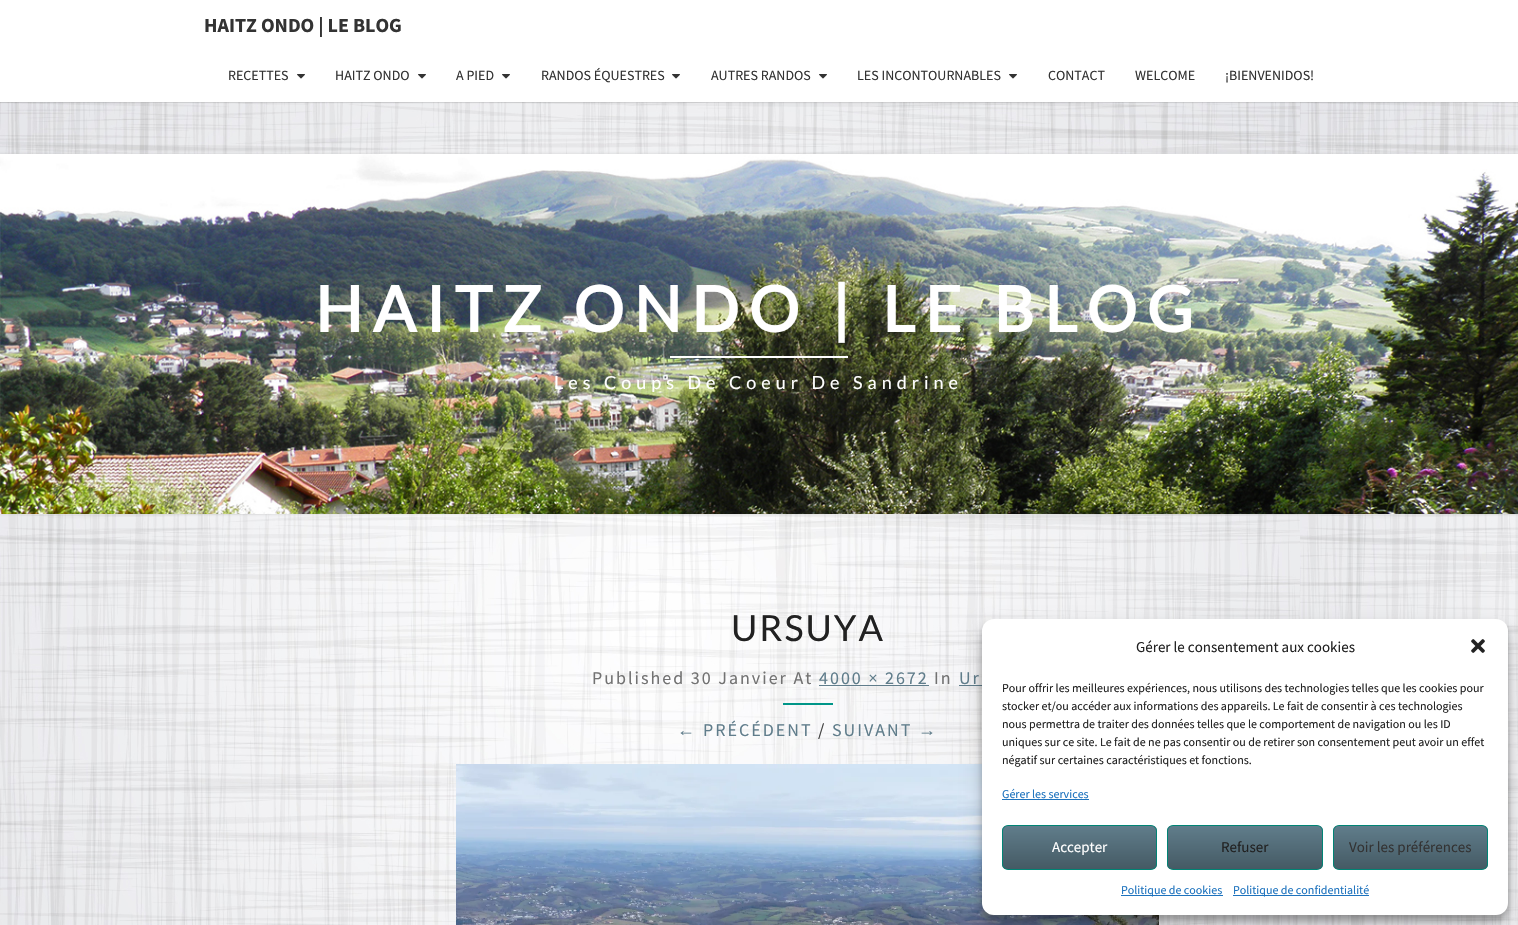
void draw(SkCanvas* c) {
SkPaint p;
p.setAntiAlias(true);
auto F=[&](const char* family, int weight, float size, bool italic = false){SkFontStyle style(weight, SkFontStyle::kNormal_Width,italic ? SkFontStyle::kItalic_Slant : SkFontStyle::kUpright_Slant);SkFont result(fontMgr->matchFamilyStyle(family, style), size);result.setSubpixel(true);return result;};
auto T=[&](const char* s, float x, float y, const SkFont& font){c->drawString(s, x, y, font, p);};
auto L=[&](const char* s, float x, float y, const SkFont& font, const SkPaint& ink, float letter, float word){std::vector<SkGlyphID> glyphs(font.countText(s, strlen(s), SkTextEncoding::kUTF8));std::vector<float> xs(glyphs.size());font.textToGlyphs(s, strlen(s), SkTextEncoding::kUTF8, glyphs);font.getXPos(glyphs, xs, x);float extra = 0;for (size_t i = 0; i < glyphs.size(); i++) {xs[i] += extra;extra += letter + word * (glyphs[i] == font.unicharToGlyph(' '));}c->drawTextBlob(SkTextBlob::MakeFromPosHGlyphs(glyphs, xs, y, font), 0, 0, ink);};
auto R=[&](float x, float y, float w, float h){c->drawRect(SkRect::MakeXYWH(x, y, w, h), p);};
auto Q=[&](float x, float y, float w, float h, float radius){c->drawRoundRect(SkRect::MakeXYWH(x, y, w, h), radius, radius, p);};
auto I=[&](const char* path, float x, float y, float w, float h){auto image = SkImages::DeferredFromEncodedData(SkData::MakeFromFileName(path));c->drawImageRect(image, SkRect::MakeXYWH(x, y, w, h), SkSamplingOptions());};
auto P=[&](const char* data, bool evenOdd = false){SkPath result = *SkParsePath::FromSVGString(data);if (evenOdd) result.setFillType(SkPathFillType::kEvenOdd);return result;};
c->clear(0xffffffff);
I("1.png",0,102,1518,823);
p.setColor(0x33646464);
p.setMaskFilter(SkMaskFilter::MakeBlur(kNormal_SkBlurStyle, .5));
c->drawRect(SkRect::MakeXYWH(0,1,1518,102),p);
p.setMaskFilter(nullptr);
p.setColor(0xffffffff);
R(0,0,1518,102);
auto f1 = F("Source Sans Pro",700,20);
p.setColor(0xff333333);
T("HAITZ ONDO | LE BLOG",204,32,f1);
auto f2 = F("Source Sans Pro",400,14);
T("RECETTES",228,80,f2);
I("2.png",297,74,8,5);
T("HAITZ ONDO",335,80,f2);
I("2.png",418,74,8,5);
T("A PIED",456,80,f2);
I("2.png",502,74,8,5);
T("RANDOS ÉQUESTRES",541,80,f2);
I("2.png",672,74,8,5);
T("AUTRES RANDOS",711,80,f2);
I("2.png",819,74,8,5);
T("LES INCONTOURNABLES",857,80,f2);
I("2.png",1009,74,8,5);
T("CONTACT",1048,80,f2);
T("WELCOME",1135,80,f2);
T("¡BIENVENIDOS!",1225,80,f2);
p.setColor(0x4db6b6b6);
p.setMaskFilter(SkMaskFilter::MakeBlur(kNormal_SkBlurStyle, 1));
c->drawRect(SkRect::MakeXYWH(-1,153,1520,362),p);
p.setMaskFilter(nullptr);
I("3.png",0,154,1518,360);
auto f3 = F("Lato",700,63);
p.setColor(0xffffffff);
L("HAITZ ONDO | LE BLOG",315,332,f3,p,10,0);
R(670,356,178,2);
auto f4 = F("Lato",400,18);
L("Les Coups De Coeur De Sandrine",554,389,f4,p,5,0);
auto f5 = F("Lato",400,36);
p.setColor(0xff212121);
L("URSUYA",731,641,f5,p,2,0);
auto f6 = F("Source Sans Pro",400,18);
p.setColor(0xff727272);
L("Published 30 Janvier At",592,684,f6,p,2,0);
p.setColor(0xff607d8b);
L("4000 × 2672",819,684,f6,p,2,0);
R(819,685,110,1);
p.setColor(0xff727272);
L("In",934,684,f6,p,2,0);
p.setColor(0xff607d8b);
L("Ur",959,684,f6,p,2,0);
R(959,685,23,1);
p.setColor(0xff009688);
R(783,703,50,2);
auto f7 = F("Liberation Sans",400,18);
p.setColor(0xff607d8b);
L("←",677,736,f7,p,2,0);
L("PRÉCÉDENT",703,736,f6,p,2,0);
p.setColor(0xff424242);
L("/",818,736,f6,p,2,0);
p.setColor(0xff607d8b);
L("SUIVANT",832,736,f6,p,2,0);
L("→",918,736,f7,p,2,0);
I("4.png",456,764,703,161);
p.setColor(0x3b000000);
p.setMaskFilter(SkMaskFilter::MakeBlur(kNormal_SkBlurStyle, 3));
c->drawRoundRect(SkRect::MakeXYWH(982,625,526,296),12,12,p);
p.setMaskFilter(nullptr);
p.setColor(0x30000000);
p.setMaskFilter(SkMaskFilter::MakeBlur(kNormal_SkBlurStyle, 10));
c->drawRoundRect(SkRect::MakeXYWH(982,629,526,296),12,12,p);
p.setMaskFilter(nullptr);
p.setColor(0xffffffff);
Q(982,619,526,296,12);
auto f8 = F("Source Sans Pro",400,15);
p.setColor(0xff212121);
T("Gérer le consentement aux cookies",1136,652,f8);
I("5.png",1471,639,14,14);
auto f9 = F("Source Sans Pro",400,12);
T("Pour offrir les meilleures expériences, nous utilisons des technologies telles que les cookies pour",1002,692,f9);
T("stocker et/ou accéder aux informations des appareils. Le fait de consentir à ces technologies",1002,710,f9);
T("nous permettra de traiter des données telles que le comportement de navigation ou les ID",1002,728,f9);
T("uniques sur ce site. Le fait de ne pas consentir ou de retirer son consentement peut avoir un effet",1002,746,f9);
T("négatif sur certaines caractéristiques et fonctions.",1002,764,f9);
p.setColor(0xff1e73be);
T("Gérer les services",1002,798,f9);
R(1002,799,87,1);
c->save();
c->clipPath(P("M1008 825h143c3.5 0 6 2.5 6 6v33c0 3.5-2.5 6-6 6h-143c-3.5 0-6-2.5-6-6v-33c0-3.5 2.5-6 6-6z"),true);
{
const SkColor colors[] = {0xff607d8b,0xff455a64};
const float stops[] = {0,1};
const SkPoint ends[] = {{1080,826}, {1080,869}};
p.setShader(SkGradientShader::MakeLinear(ends, colors, stops, 2, SkTileMode::kClamp));
p.setAlpha(255);
}
R(1002,826,155,43);
c->restore();
p.setStroke(true);
p.setStrokeWidth(1);
p.setShader(nullptr);
p.setColor(0xff008475);
c->drawRoundRect(SkRect::MakeXYWH(1002.5,825.5,154,44),5.5,5.5,p);
p.setStroke(false);
p.setColor(0xffffffff);
T("Accepter",1052,852,f8);
c->save();
c->clipPath(P("M1173 825h144c3.5 0 6 2.5 6 6v33c0 3.5-2.5 6-6 6h-144c-3.5 0-6-2.5-6-6v-33c0-3.5 2.5-6 6-6z"),true);
{
const SkColor colors[] = {0xff607d8b,0xff455a64};
const float stops[] = {0,1};
const SkPoint ends[] = {{1245,826}, {1245,869}};
p.setShader(SkGradientShader::MakeLinear(ends, colors, stops, 2, SkTileMode::kClamp));
p.setAlpha(255);
}
R(1167,826,156,43);
c->restore();
p.setStroke(true);
p.setShader(nullptr);
p.setColor(0xff008475);
c->drawRoundRect(SkRect::MakeXYWH(1167.5,825.5,155,44),5.5,5.5,p);
p.setStroke(false);
p.setColor(0xff212121);
T("Refuser",1221,852,f8);
c->save();
c->clipPath(P("M1339 825h143c3.5 0 6 2.5 6 6v33c0 3.5-2.5 6-6 6h-143c-3.5 0-6-2.5-6-6v-33c0-3.5 2.5-6 6-6z"),true);
{
const SkColor colors[] = {0xff607d8b,0xff455a64};
const float stops[] = {0,1};
const SkPoint ends[] = {{1411,826}, {1411,869}};
p.setShader(SkGradientShader::MakeLinear(ends, colors, stops, 2, SkTileMode::kClamp));
p.setAlpha(255);
}
R(1333,826,155,43);
c->restore();
p.setStroke(true);
p.setShader(nullptr);
p.setColor(0xff008475);
c->drawRoundRect(SkRect::MakeXYWH(1333.5,825.5,154,44),5.5,5.5,p);
p.setStroke(false);
p.setColor(0xff333333);
T("Voir les préférences",1349,852,f8);
p.setColor(0xff1e73be);
R(1121,895,102,1);
T("Politique de cookies",1121,894,f9);
R(1233,895,136,1);
T("Politique de confidentialité",1233,894,f9);
}
